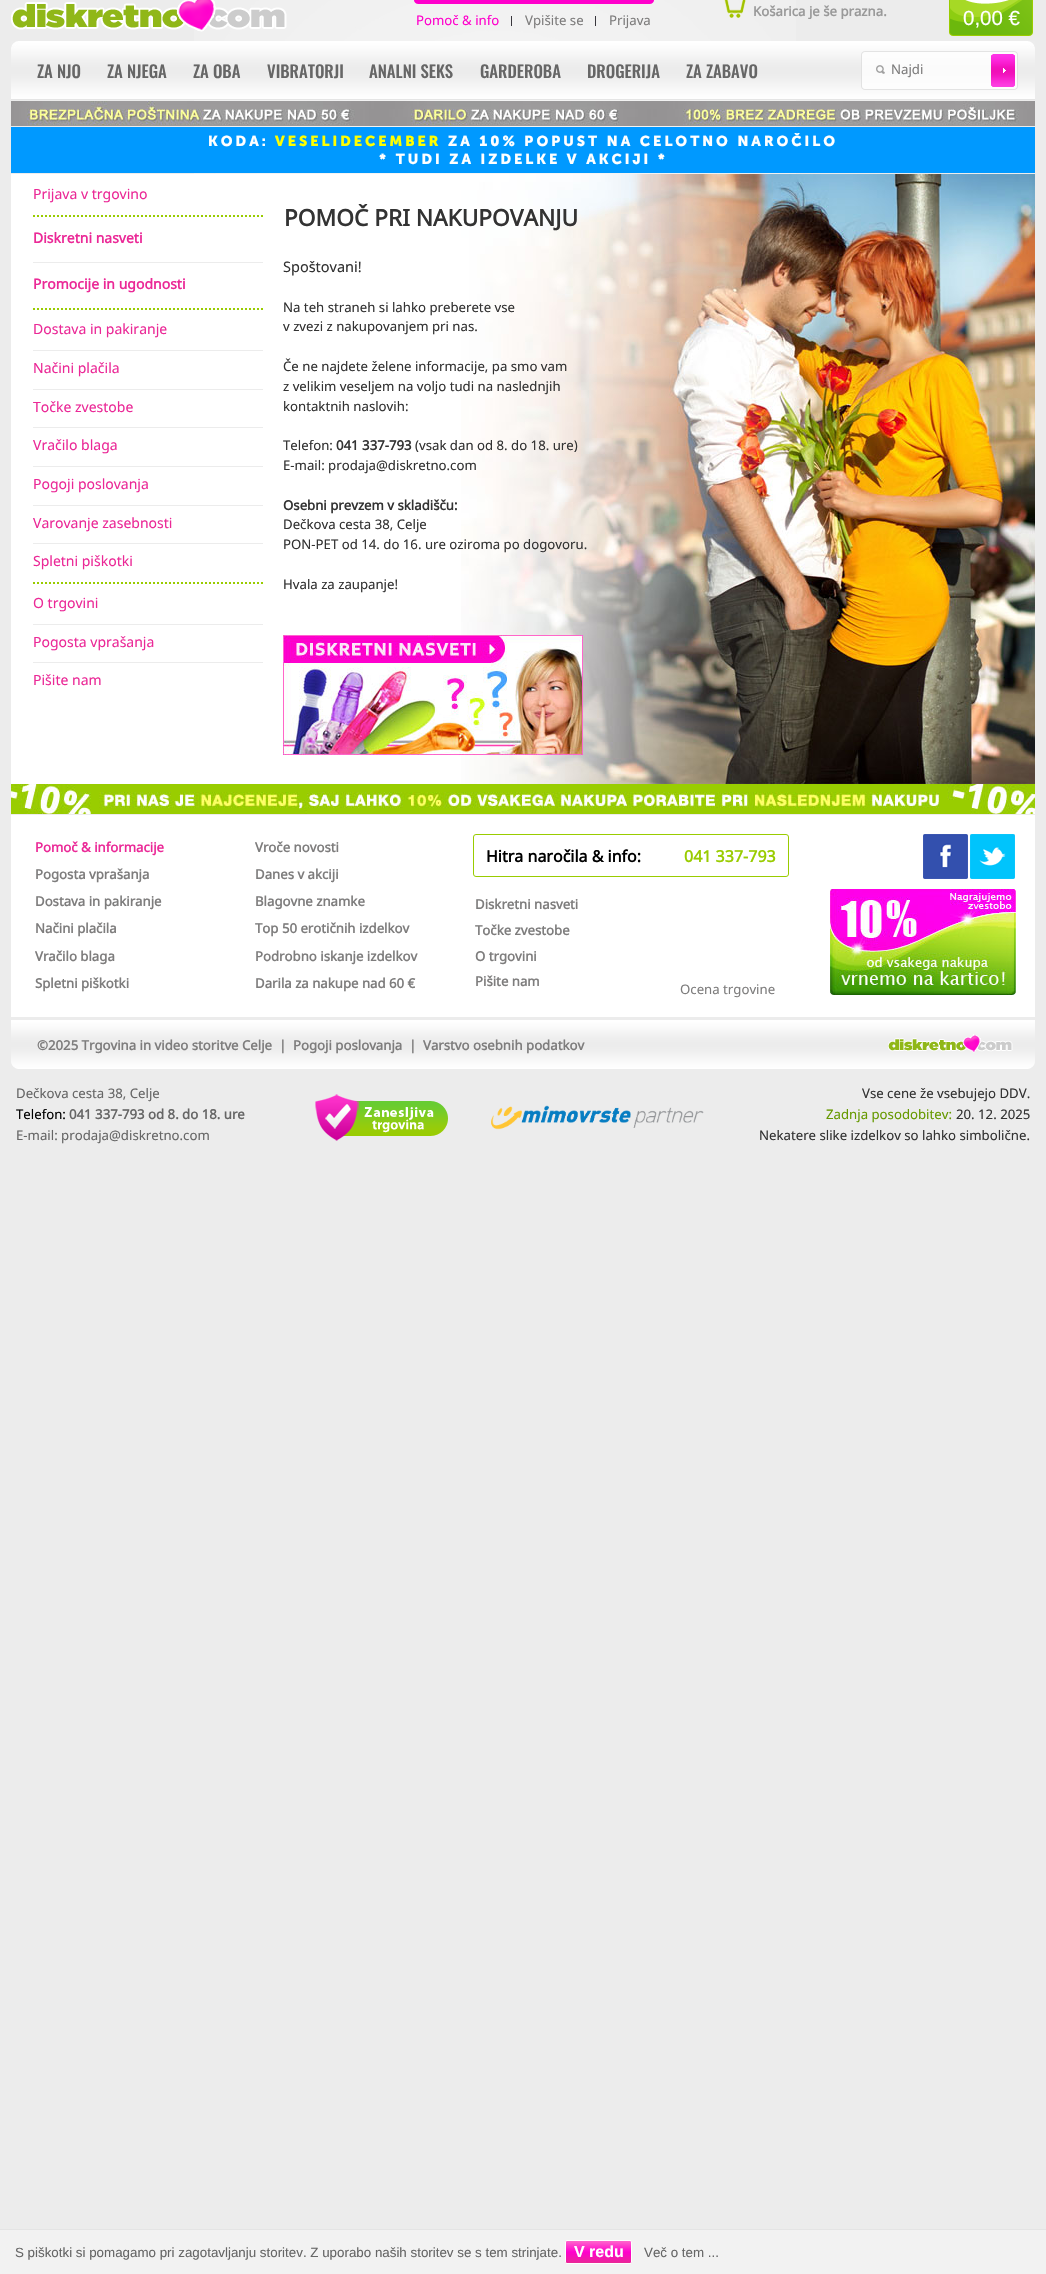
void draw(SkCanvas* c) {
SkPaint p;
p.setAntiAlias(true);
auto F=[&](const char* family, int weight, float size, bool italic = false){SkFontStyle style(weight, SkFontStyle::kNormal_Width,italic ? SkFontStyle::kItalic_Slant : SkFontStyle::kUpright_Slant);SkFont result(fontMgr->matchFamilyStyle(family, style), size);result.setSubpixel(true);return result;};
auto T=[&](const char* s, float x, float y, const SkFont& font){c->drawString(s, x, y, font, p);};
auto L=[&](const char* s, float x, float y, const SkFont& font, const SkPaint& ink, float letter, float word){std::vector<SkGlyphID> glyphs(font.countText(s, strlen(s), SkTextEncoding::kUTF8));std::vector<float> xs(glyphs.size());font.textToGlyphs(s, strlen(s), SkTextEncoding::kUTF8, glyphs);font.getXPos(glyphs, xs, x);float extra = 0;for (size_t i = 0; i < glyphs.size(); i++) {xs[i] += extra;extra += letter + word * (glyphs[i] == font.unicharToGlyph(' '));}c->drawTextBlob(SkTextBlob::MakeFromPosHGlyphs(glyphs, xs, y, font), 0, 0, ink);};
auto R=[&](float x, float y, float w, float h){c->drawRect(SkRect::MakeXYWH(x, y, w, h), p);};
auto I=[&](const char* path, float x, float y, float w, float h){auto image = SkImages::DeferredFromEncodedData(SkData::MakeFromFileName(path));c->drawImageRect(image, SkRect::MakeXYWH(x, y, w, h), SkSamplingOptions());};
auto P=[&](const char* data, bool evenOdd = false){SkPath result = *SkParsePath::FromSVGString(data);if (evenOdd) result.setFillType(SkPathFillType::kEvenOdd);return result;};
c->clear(0xffececec);
I("1.png",194,0,602,174);
I("2.png",11,0,276,32);
I("3.png",414,0,240,4);
p.setColor(0xff39373d);
R(511,16,1,10);
auto f1 = F("Noto Sans",400,13.2);
p.setColor(0xffff00cc);
T("Pomoč & info",416,25,f1);
p.setColor(0xff39373d);
R(595,16,1,10);
p.setColor(0xff7e7d7d);
T("Vpišite se",525,25,f1);
T("Prijava",609,25,f1);
I("4.png",724,0,22,18);
c->save();
c->clipRect(SkRect::MakeXYWH(698,0,225,19));
auto f2 = F("Noto Sans",700,13.2);
p.setColor(0xff999999);
T("Košarica je še prazna.",753,16,f2);
c->restore();
I("5.png",949,0,84,36);
auto f3 = F("Liberation Sans",400,20.5);
p.setColor(0xffffffff);
T("0,00 €",963,25,f3);
I("8.png",11,41,1024,59);
I("6.png",861,51,127,39);
p.setColor(0xff7e7d7d);
T("Najdi",891,74,f1);
I("7.png",988,51,30,39);
auto f4 = F("Oswald",500,16.75);
p.setColor(0xff666666);
T("ZA NJO",37,78,f4);
T("ZA NJEGA",107,78,f4);
T("ZA OBA",193,78,f4);
T("VIBRATORJI",267,78,f4);
T("ANALNI SEKS",369,78,f4);
T("GARDEROBA",480,78,f4);
T("DROGERIJA",587,78,f4);
T("ZA ZABAVO",686,78,f4);
I("9.png",11,101,1024,25);
p.setColor(0xff0099ff);
R(11,127,1024,46);
auto f5 = F("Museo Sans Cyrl",700,14.4);
p.setColor(0xffffffff);
L("KODA:",208,146,f5,p,3,0);
p.setColor(0xffffff00);
L("VESELIDECEMBER",275,146,f5,p,3,0);
p.setColor(0xffffffff);
L("ZA 10% POPUST NA CELOTNO NAROČILO",448,146,f5,p,3,0);
L("* TUDI ZA IZDELKE V AKCIJI *",379,164,f5,p,3,0);
R(11,174,450,610);
auto f6 = F("Noto Sans",400,14);
p.setColor(0xffeb2997);
T("Prijava v trgovino",33,199,f6);
p.setStroke(true);
p.setStrokeWidth(2);
p.setColor(0xff99cc00);
p.setPathEffect(SkDashPathEffect::Make({{2,2}}, 0));
c->drawPath(P("M33 216h230"),p);
p.setPathEffect(nullptr);
auto f7 = F("Noto Sans",700,14);
p.setStroke(false);
p.setColor(0xffeb2997);
T("Diskretni nasveti",33,243,f7);
p.setColor(0xffececec);
R(33,262,230,1);
p.setColor(0xffeb2997);
T("Promocije in ugodnosti",33,289,f7);
p.setStroke(true);
p.setColor(0xff99cc00);
p.setPathEffect(SkDashPathEffect::Make({{2,2}}, 0));
c->drawPath(P("M33 309h230"),p);
p.setPathEffect(nullptr);
p.setStroke(false);
p.setColor(0xffeb2997);
T("Dostava in pakiranje",33,334,f6);
p.setColor(0xffececec);
R(33,350,230,1);
p.setColor(0xffeb2997);
T("Načini plačila",33,373,f6);
p.setColor(0xffececec);
R(33,389,230,1);
p.setColor(0xffeb2997);
T("Točke zvestobe",33,412,f6);
p.setColor(0xffececec);
R(33,427,230,1);
p.setColor(0xffeb2997);
T("Vračilo blaga",33,450,f6);
p.setColor(0xffececec);
R(33,466,230,1);
p.setColor(0xffeb2997);
T("Pogoji poslovanja",33,489,f6);
p.setColor(0xffececec);
R(33,505,230,1);
p.setColor(0xffeb2997);
T("Varovanje zasebnosti",33,528,f6);
p.setColor(0xffececec);
R(33,543,230,1);
p.setColor(0xffeb2997);
T("Spletni piškotki",33,566,f6);
p.setStroke(true);
p.setColor(0xff99cc00);
p.setPathEffect(SkDashPathEffect::Make({{2,2}}, 0));
c->drawPath(P("M33 583h230"),p);
p.setPathEffect(nullptr);
p.setStroke(false);
p.setColor(0xffeb2997);
T("O trgovini",33,608,f6);
p.setColor(0xffececec);
R(33,624,230,1);
p.setColor(0xffeb2997);
T("Pogosta vprašanja",33,647,f6);
p.setColor(0xffececec);
R(33,662,230,1);
p.setColor(0xffeb2997);
T("Pišite nam",33,685,f6);
I("10.png",461,174,574,610);
auto f8 = F("Noto Sans",700,22.75);
p.setColor(0xff333333);
T("POMOČ PRI NAKUPOVANJU",284,226,f8);
auto f9 = F("Noto Sans",400,14.5);
T("Spoštovani!",283,272,f9);
T("Na teh straneh si lahko preberete vse",283,312,f1);
T("v zvezi z nakupovanjem pri nas.",283,331,f1);
T("Če ne najdete želene informacije, pa smo vam",283,371,f1);
T("z velikim veseljem na voljo tudi na naslednjih",283,391,f1);
T("kontaktnih naslovih:",283,411,f1);
T("Telefon:",283,450,f1);
T("041 337-793",336,450,f2);
T("(vsak dan od 8. do 18. ure)",415,450,f1);
T("E-mail: prodaja@diskretno.com",283,470,f1);
T("Osebni prevzem v skladišču:",283,510,f2);
T("Dečkova cesta 38, Celje",283,529,f1);
T("PON-PET od 14. do 16. ure oziroma po dogovoru.",283,549,f1);
T("Hvala za zaupanje!",283,589,f1);
I("11.png",283,635,300,120);
I("12.png",11,784,1024,30);
I("13.png",11,815,1024,254);
p.setColor(0xffeb2997);
T("Pomoč & informacije",35,852,f2);
p.setColor(0xff7e7d7d);
T("Pogosta vprašanja",35,879,f2);
T("Dostava in pakiranje",35,906,f2);
T("Načini plačila",35,933,f2);
T("Vračilo blaga",35,961,f2);
T("Spletni piškotki",35,988,f2);
T("Vroče novosti",255,852,f2);
T("Danes v akciji",255,879,f2);
T("Blagovne znamke",255,906,f2);
T("Top 50 erotičnih izdelkov",255,933,f2);
T("Podrobno iskanje izdelkov",255,961,f2);
T("Darila za nakupe nad 60 €",255,988,f2);
p.setStroke(true);
p.setStrokeWidth(1);
p.setColor(0xff99cc00);
c->drawRoundRect(SkRect::MakeXYWH(473.5,834.5,315,42),2.5,2.5,p);
auto f10 = F("Noto Sans",700,16);
p.setStroke(false);
p.setColor(0xff000000);
T("Hitra naročila & info:",486,862,f10);
p.setColor(0xff99cc00);
T("041 337-793",684,862,f10);
p.setColor(0xff7e7d7d);
T("Diskretni nasveti",475,909,f2);
T("Točke zvestobe",475,935,f2);
T("O trgovini",475,961,f2);
T("Pišite nam",475,986,f2);
T("Ocena trgovine",680,994,f1);
I("14.png",923,834,45,45);
I("15.png",970,834,45,45);
I("16.png",830,889,186,106);
T("©2025 Trgovina in video storitve Celje",37,1050,f2);
T("|",279,1050,f2);
T("Pogoji poslovanja",293,1050,f2);
T("|",409,1050,f2);
T("Varstvo osebnih podatkov",423,1050,f2);
I("17.png",888,1034,125,19);
p.setColor(0xff666666);
T("Dečkova cesta 38, Celje",16,1098,f1);
p.setColor(0xff000000);
T("Telefon:",16,1119,f1);
p.setColor(0xff666666);
T("041 337-793 od 8. do 18. ure",69,1119,f2);
T("E-mail: prodaja@diskretno.com",16,1140,f1);
I("18.png",315,1094,133,47);
I("19.png",491,1105,213,25);
p.setColor(0xff333333);
T("Vse cene že vsebujejo DDV.",862,1098,f1);
p.setColor(0xff669900);
T("Zadnja posodobitev:",826,1119,f1);
p.setColor(0xff333333);
T("20. 12. 2025",956,1119,f1);
T("Nekatere slike izdelkov so lahko simbolične.",759,1140,f1);
p.setColor(0xfff2f2f2);
R(0,2230,1046,44);
p.setColor(0xffe4e4e4);
R(0,2229,1046,1);
auto f11 = F("Liberation Sans",400,13.35);
p.setColor(0xff666666);
T("S piškotki si pomagamo pri zagotavljanju storitev. Z uporabo naših storitev se s tem strinjate.",15,2257,f11);
c->save();
c->clipPath(P("M567 2240h63c1 0 2 1 2 2v20c0 1-1 2-2 2h-63c-1 0-2-1-2-2v-20c0-1 1-2 2-2z"),true);
{
const SkColor colors[] = {0xffff66cc,0xffff00cc,0xffff00cc,0xffe92896};
const float stops[] = {0,.5,.51,1};
const SkPoint ends[] = {{599,2241}, {599,2263}};
p.setShader(SkGradientShader::MakeLinear(ends, colors, stops, 4, SkTileMode::kClamp));
p.setAlpha(255);
}
R(565,2241,67,22);
c->restore();
p.setStroke(true);
p.setShader(nullptr);
p.setColor(0xffffffff);
c->drawRoundRect(SkRect::MakeXYWH(565.5,2240.5,66,23),1.5,1.5,p);
auto f12 = F("Liberation Sans",700,16);
p.setStroke(false);
T("V redu",574,2257,f12);
p.setColor(0xff666666);
T("Več o tem ...",644,2257,f11);
}
